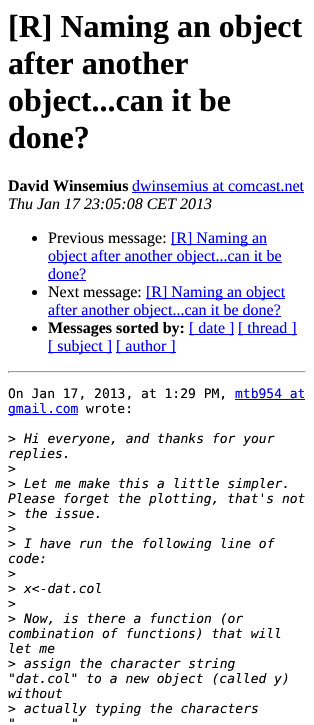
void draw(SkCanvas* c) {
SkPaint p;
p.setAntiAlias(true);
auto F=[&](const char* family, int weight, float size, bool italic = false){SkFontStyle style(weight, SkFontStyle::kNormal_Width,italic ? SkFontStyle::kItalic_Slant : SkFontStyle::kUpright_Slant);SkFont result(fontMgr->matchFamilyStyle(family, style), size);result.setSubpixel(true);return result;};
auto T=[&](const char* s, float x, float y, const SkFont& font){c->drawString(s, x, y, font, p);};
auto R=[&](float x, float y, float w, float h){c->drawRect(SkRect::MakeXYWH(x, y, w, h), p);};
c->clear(0xffffffff);
auto f1 = F("Liberation Serif",700,32);
p.setColor(0xff000000);
T("[R] Naming an object",8,37,f1);
T("after another",8,74,f1);
T("object...can it be",8,111,f1);
T("done?",8,148,f1);
auto f2 = F("Liberation Serif",700,16);
T("David Winsemius",8,191,f2);
auto f3 = F("Liberation Serif",400,16);
p.setColor(0xff0000ee);
T("dwinsemius at comcast.net",132,191,f3);
R(132,192,172,1);
auto f4 = F("Liberation Serif",400,16,true);
p.setColor(0xff000000);
T("Thu Jan 17 23:05:08 CET 2013",8,209,f4);
c->drawCircle(34.5,238.5,2.5,p);
T("Previous message:",48,243,f3);
p.setColor(0xff0000ee);
R(171,244,96,1);
T("[R] Naming an",171,243,f3);
R(48,262,234,1);
T("object after another object...can it be",48,261,f3);
T("done?",48,279,f3);
R(48,280,38,1);
p.setColor(0xff000000);
c->drawCircle(34.5,292.5,2.5,p);
T("Next message:",48,297,f3);
p.setColor(0xff0000ee);
R(146,298,139,1);
T("[R] Naming an object",146,297,f3);
R(48,316,233,1);
T("after another object...can it be done?",48,315,f3);
p.setColor(0xff000000);
c->drawCircle(34.5,328.5,2.5,p);
T("Messages sorted by:",48,333,f2);
p.setColor(0xff0000ee);
R(189,334,45,1);
T("[ date ]",189,333,f3);
R(238,334,59,1);
T("[ thread ]",238,333,f3);
R(48,352,64,1);
T("[ subject ]",48,351,f3);
R(116,352,60,1);
T("[ author ]",116,351,f3);
p.setColor(0xff9f9f9f);
R(8,371,298,1);
p.setColor(0xffeeeeee);
R(305,371,1,2);
R(8,372,298,1);
p.setColor(0xff9f9f9f);
R(8,371,1,2);
auto f5 = F("DejaVu Sans Mono",400,13);
p.setColor(0xff000000);
T("On Jan 17, 2013, at 1:29 PM,",8,398,f5);
p.setColor(0xff0000ee);
T("mtb954 at",235,398,f5);
R(235,399,70,1);
R(8,414,70,1);
T("gmail.com",8,413,f5);
p.setColor(0xff000000);
T("wrote:",86,413,f5);
T(">",8,443,f5);
auto f6 = F("DejaVu Sans Mono",400,13,true);
T("Hi everyone, and thanks for your",24,443,f6);
T("replies.",8,458,f6);
T(">",8,473,f5);
T(">",8,488,f5);
T("Let me make this a little simpler.",24,488,f6);
T("Please forget the plotting, that's not",8,503,f6);
T(">",8,518,f5);
T("the issue.",24,518,f6);
T(">",8,533,f5);
T(">",8,548,f5);
T("I have run the following line of",24,548,f6);
T("code:",8,563,f6);
T(">",8,578,f5);
T(">",8,593,f5);
T("x<-dat.col",24,593,f6);
T(">",8,608,f5);
T(">",8,623,f5);
T("Now, is there a function (or",24,623,f6);
T("combination of functions) that will",8,638,f6);
T("let me",8,653,f6);
T(">",8,668,f5);
T("assign the character string",24,668,f6);
T("\"dat.col\" to a new object (called y)",8,683,f6);
T("without",8,698,f6);
T(">",8,713,f5);
T("actually typing the characters",24,713,f6);
T("\"",8,728,f6);
T("\"",71,728,f6);
}
